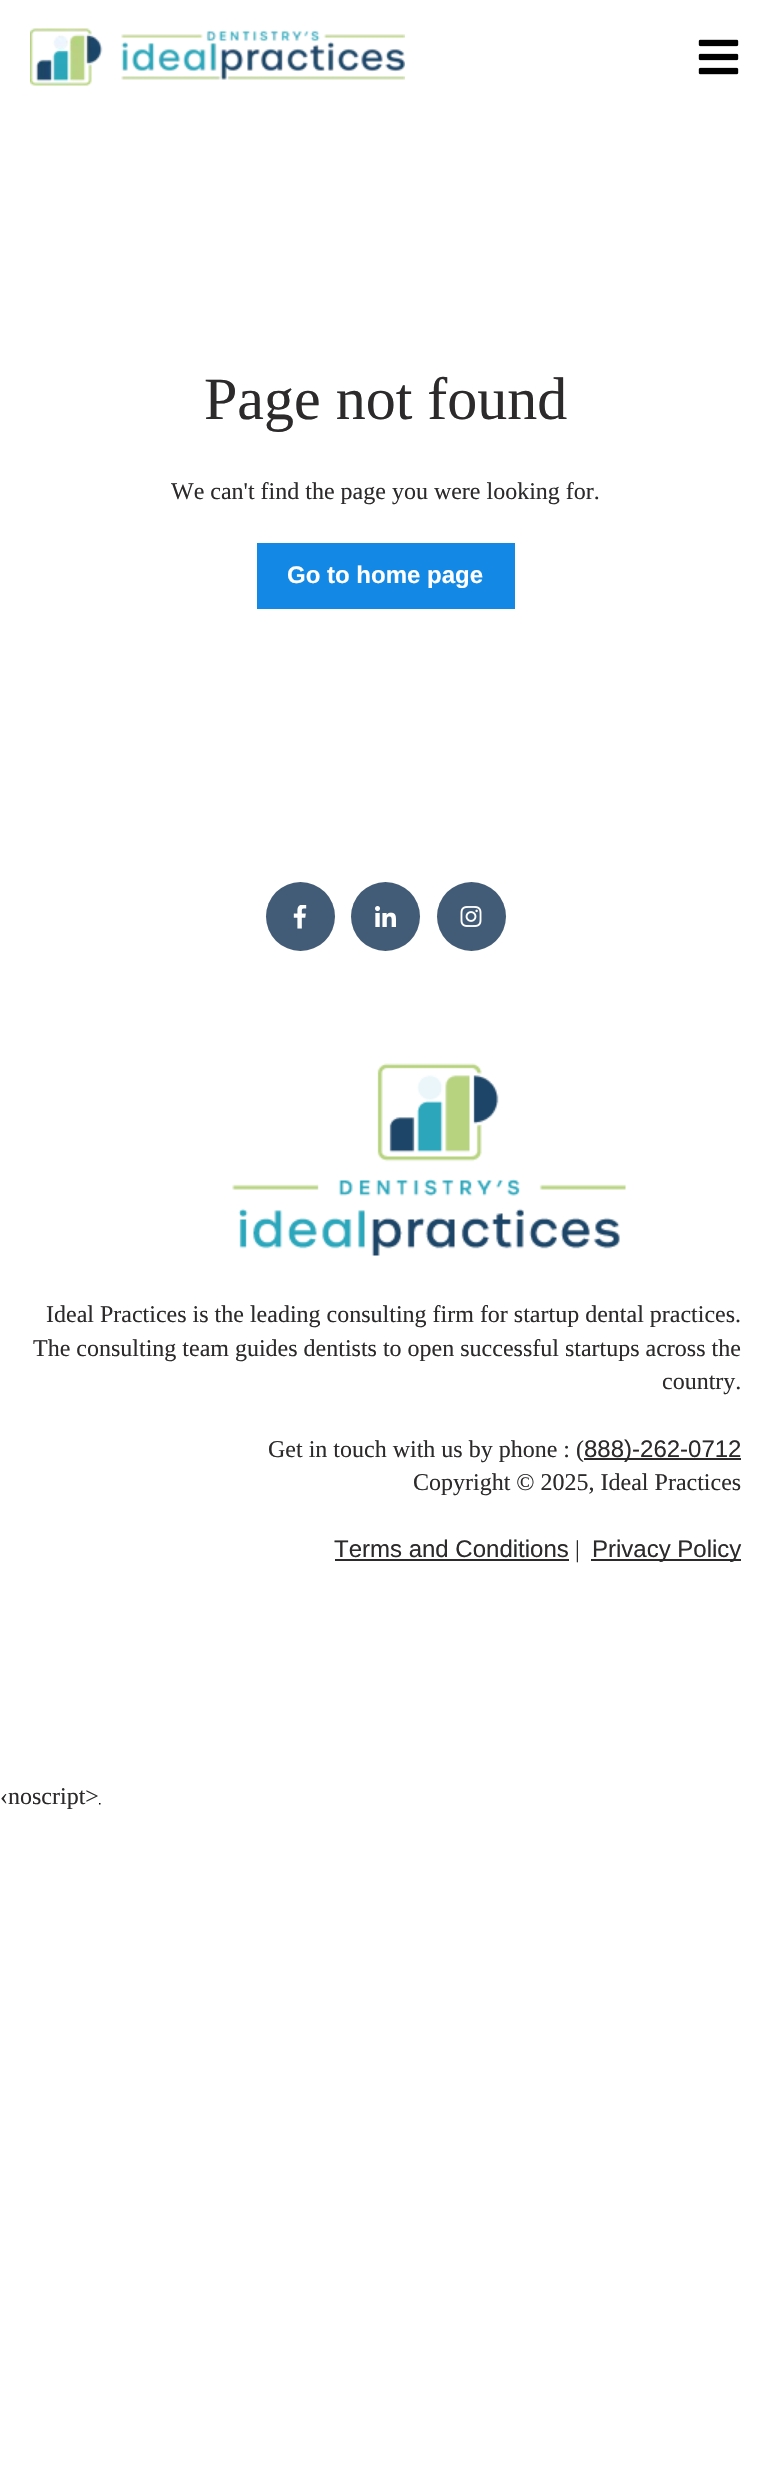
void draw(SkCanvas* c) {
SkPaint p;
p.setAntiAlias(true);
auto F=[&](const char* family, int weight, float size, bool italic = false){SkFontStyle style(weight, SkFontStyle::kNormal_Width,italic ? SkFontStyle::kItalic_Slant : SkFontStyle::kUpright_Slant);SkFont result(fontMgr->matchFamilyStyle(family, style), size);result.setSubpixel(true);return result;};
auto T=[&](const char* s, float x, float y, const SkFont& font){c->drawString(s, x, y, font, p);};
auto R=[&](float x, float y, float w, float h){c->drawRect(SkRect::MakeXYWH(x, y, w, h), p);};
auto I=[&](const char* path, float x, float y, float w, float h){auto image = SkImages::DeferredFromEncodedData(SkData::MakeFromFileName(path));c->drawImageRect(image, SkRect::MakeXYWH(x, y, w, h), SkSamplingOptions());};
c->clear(0xffffffff);
I("1.png",30,28,375,58);
I("2.png",698,39,41,36);
auto f1 = F("Liberation Serif",400,60);
p.setColor(0xff2c2a2b);
T("Page not found",204,419,f1);
auto f2 = F("Liberation Serif",400,24);
T("We can't find the page you were looking for.",171,499,f2);
p.setColor(0xff1388e5);
R(257,543,258,66);
auto f3 = F("Liberation Sans",700,24);
p.setColor(0xffffffff);
T("Go to home page",287,583,f3);
p.setColor(0xff425b76);
c->drawCircle(300.5,916.5,34.5,p);
I("3.png",293,905,14,24);
c->drawCircle(385.5,916.5,34.5,p);
I("4.png",375,906,21,21);
c->drawCircle(471.5,916.5,34.5,p);
I("5.png",460,906,22,21);
I("6.png",232,1063,394,193);
p.setColor(0xff2c2a2b);
T("Ideal Practices is the leading consulting firm for startup dental practices.",46,1322,f2);
T("The consulting team guides dentists to open successful startups across the",33,1356,f2);
T("country.",662,1389,f2);
T("Get in touch with us by phone : (",268,1457,f2);
R(584,1458,157,2);
auto f4 = F("Liberation Sans",400,24);
T("888)-262-0712",584,1457,f4);
T("Copyright © 2025, Ideal Practices",413,1490,f2);
T("Terms and Conditions",334,1557,f4);
R(335,1559,234,2);
T("|",575,1557,f2);
R(591,1559,150,2);
T("Privacy Policy",592,1557,f4);
T("‹noscript>",0,1804,f2);
I("7.png",99,1803,2,2);
}
